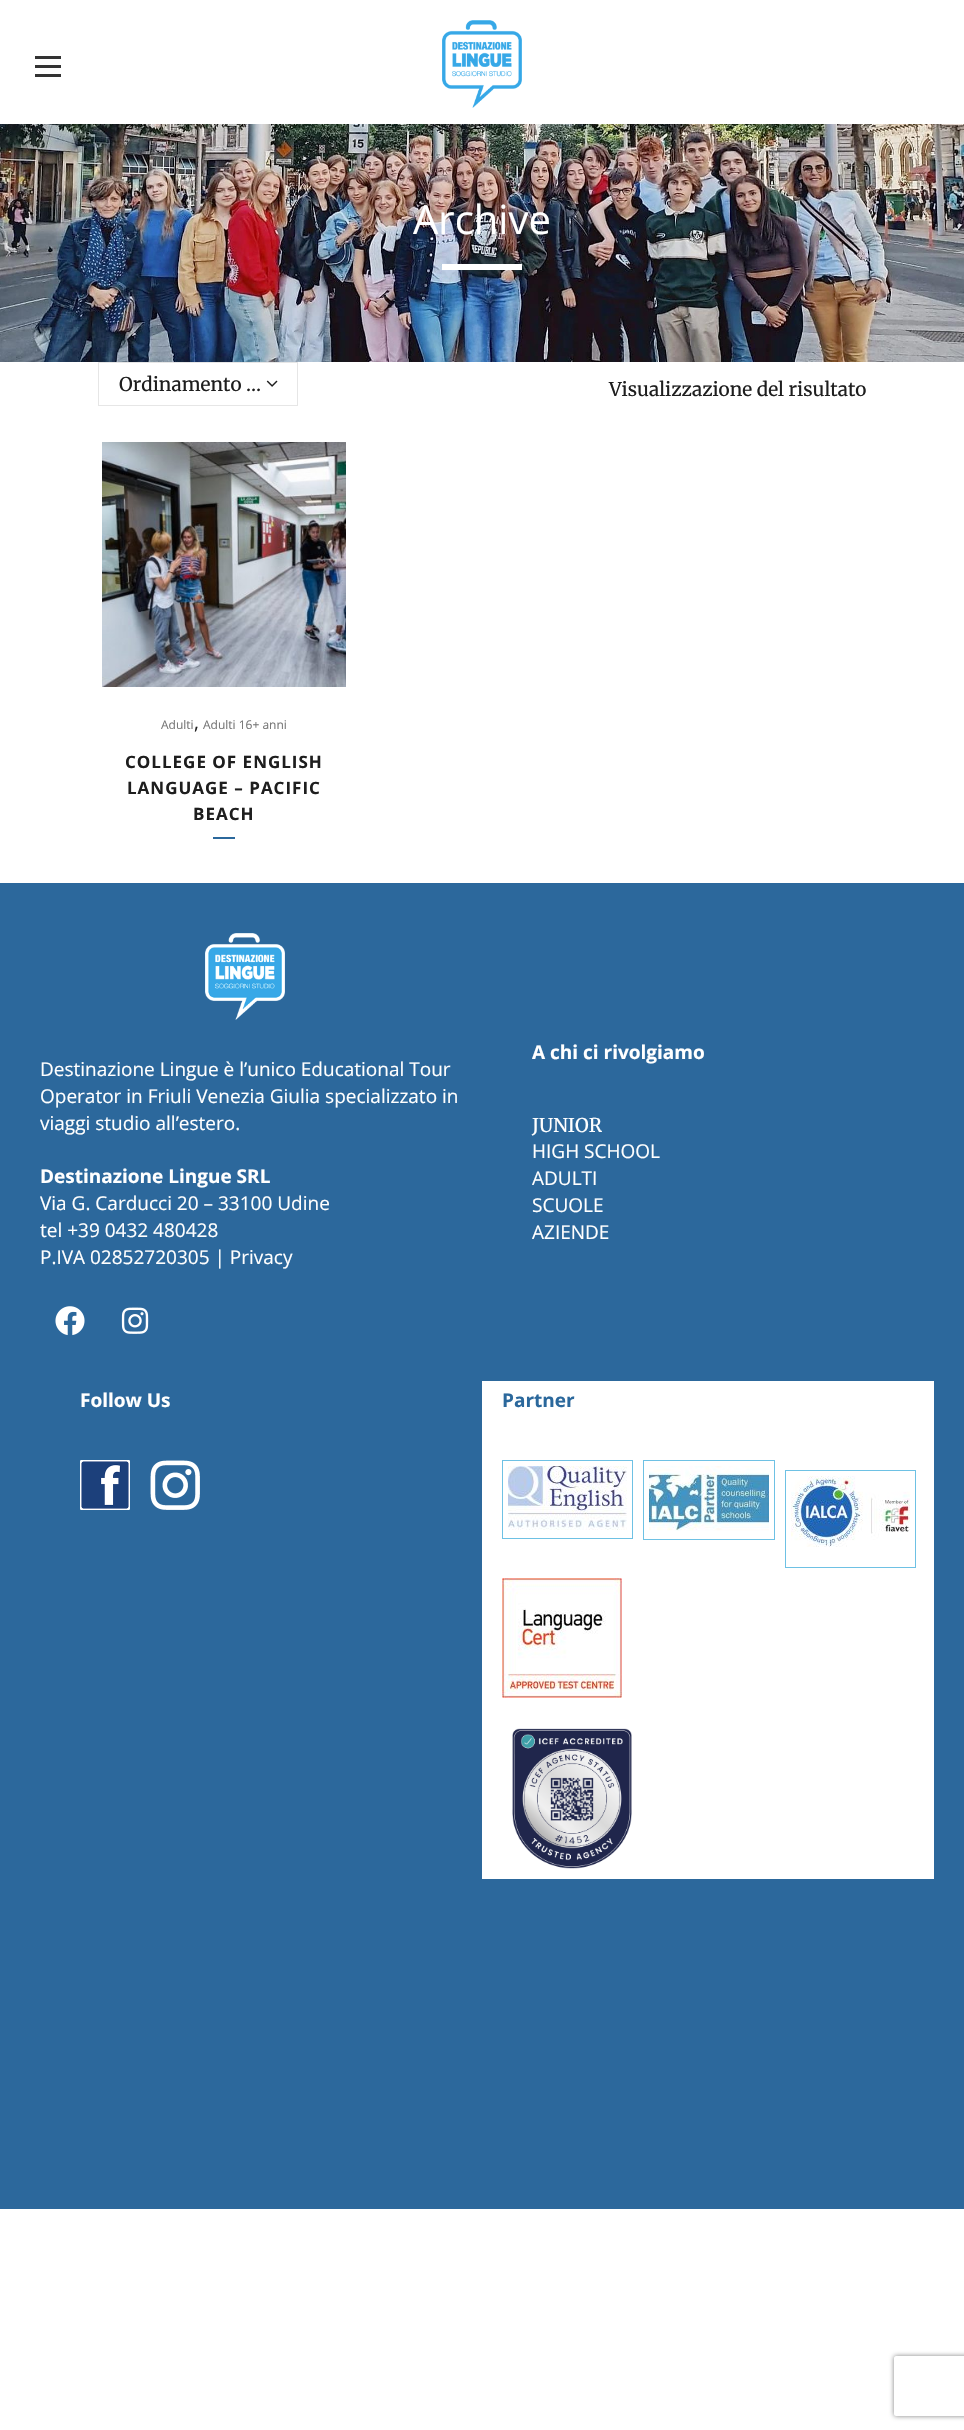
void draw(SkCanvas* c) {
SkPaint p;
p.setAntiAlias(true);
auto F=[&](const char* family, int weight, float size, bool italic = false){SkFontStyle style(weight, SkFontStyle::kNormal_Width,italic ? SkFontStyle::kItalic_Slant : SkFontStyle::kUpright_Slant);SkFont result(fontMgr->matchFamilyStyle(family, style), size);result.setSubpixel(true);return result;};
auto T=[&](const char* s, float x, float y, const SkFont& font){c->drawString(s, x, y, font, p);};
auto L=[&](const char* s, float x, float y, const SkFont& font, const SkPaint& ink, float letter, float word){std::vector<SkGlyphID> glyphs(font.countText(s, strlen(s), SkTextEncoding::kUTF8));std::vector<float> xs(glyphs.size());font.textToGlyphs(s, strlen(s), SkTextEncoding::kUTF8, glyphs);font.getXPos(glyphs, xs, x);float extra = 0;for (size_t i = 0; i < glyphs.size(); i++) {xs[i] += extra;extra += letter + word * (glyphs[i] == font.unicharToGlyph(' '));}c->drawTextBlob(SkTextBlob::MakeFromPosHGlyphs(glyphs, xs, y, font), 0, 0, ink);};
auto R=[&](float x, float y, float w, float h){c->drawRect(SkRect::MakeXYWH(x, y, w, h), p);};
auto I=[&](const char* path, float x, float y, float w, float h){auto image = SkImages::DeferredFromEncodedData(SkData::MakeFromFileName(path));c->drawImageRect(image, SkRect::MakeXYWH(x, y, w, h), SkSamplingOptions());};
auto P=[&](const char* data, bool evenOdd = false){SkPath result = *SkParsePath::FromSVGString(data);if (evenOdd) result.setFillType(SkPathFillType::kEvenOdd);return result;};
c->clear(0xffffffff);
p.setColor(0xff333333);
R(35,56,26,3);
R(35,65,26,3);
R(35,74,26,3);
I("1.png",442,20,80,88);
I("2.png",0,124,964,238);
auto f1 = F("Open Sans",400,40);
p.setColor(0xffffffff);
T("Archive",413,234,f1);
R(442,264,80,6);
p.setStroke(true);
p.setStrokeWidth(1);
p.setColor(0xffe6e6e6);
c->drawRect(SkRect::MakeXYWH(98.5,362.5,199,43),p);
auto f2 = F("Merriweather",400,19);
p.setStroke(false);
p.setColor(0xff1e1e1e);
T("Ordinamento …",119,391,f2);
I("3.png",266,380,12,7);
T("Visualizzazione del risultato",609,396,f2);
I("4.png",102,442,244,245);
auto f3 = F("Open Sans",400,12);
p.setColor(0xff777777);
T("Adulti",161,729,f3);
auto f4 = F("Open Sans",400,19);
p.setColor(0xff1e1e1e);
T(",",194,729,f4);
p.setColor(0xff777777);
T("Adulti 16+ anni",203,729,f3);
auto f5 = F("Open Sans",700,17);
p.setColor(0xff1e1e1e);
L("COLLEGE OF ENGLISH",125,768,f5,p,1,0);
L("LANGUAGE – PACIFIC",127,794,f5,p,1,0);
L("BEACH",193,820,f5,p,1,0);
p.setColor(0xff2b689c);
R(213,837,22,2);
p.setColor(0xff2c689c);
R(0,883,964,1326);
I("5.png",205,933,80,87);
p.setColor(0xffffffff);
T("Destinazione Lingue è l’unico Educational Tour",40,1076,f4);
T("Operator in Friuli Venezia Giulia specializzato in",40,1103,f4);
T("viaggi studio all’estero.",40,1130,f4);
auto f6 = F("Open Sans",700,19);
T("Destinazione Lingue SRL",40,1183,f6);
T("Via G. Carducci 20 – 33100 Udine",40,1210,f4);
T("tel +39 0432 480428",40,1237,f4);
T("P.IVA 02852720305 | Privacy",40,1264,f4);
I("6.png",55,1306,30,30);
I("7.png",121,1307,28,27);
T("A chi ci rivolgiamo",532,1059,f6);
T("JUNIOR",532,1132,f2);
T("HIGH SCHOOL",532,1158,f4);
T("ADULTI",532,1185,f4);
T("SCUOLE",532,1212,f4);
T("AZIENDE",532,1239,f4);
T("Follow Us",80,1407,f6);
I("8.png",80,1460,50,50);
I("9.png",150,1460,50,50);
R(482,1381,452,498);
p.setColor(0xff2b689c);
T("Partner",502,1407,f6);
p.setStroke(true);
p.setColor(0xff6ec1e4);
c->drawRect(SkRect::MakeXYWH(502.5,1460.5,130,78),p);
I("10.png",508,1466,119,64);
c->drawRect(SkRect::MakeXYWH(643.5,1460.5,131,79),p);
I("11.png",649,1466,120,65);
c->drawRect(SkRect::MakeXYWH(785.5,1470.5,130,97),p);
I("12.png",791,1476,119,71);
I("13.png",502,1578,120,120);
I("14.png",512,1728,120,141);
c->save();
c->clipPath(P("M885 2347h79v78h-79zm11 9h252c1 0 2 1 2 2v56c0 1-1 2-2 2h-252c-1 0-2-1-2-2v-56c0-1 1-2 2-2z",true),true);
p.setStroke(false);
p.setColor(0xff808080);
p.setMaskFilter(SkMaskFilter::MakeBlur(kNormal_SkBlurStyle, 2.5));
c->drawRoundRect(SkRect::MakeXYWH(894,2356,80,60),2,2,p);
p.setMaskFilter(nullptr);
c->restore();
}
